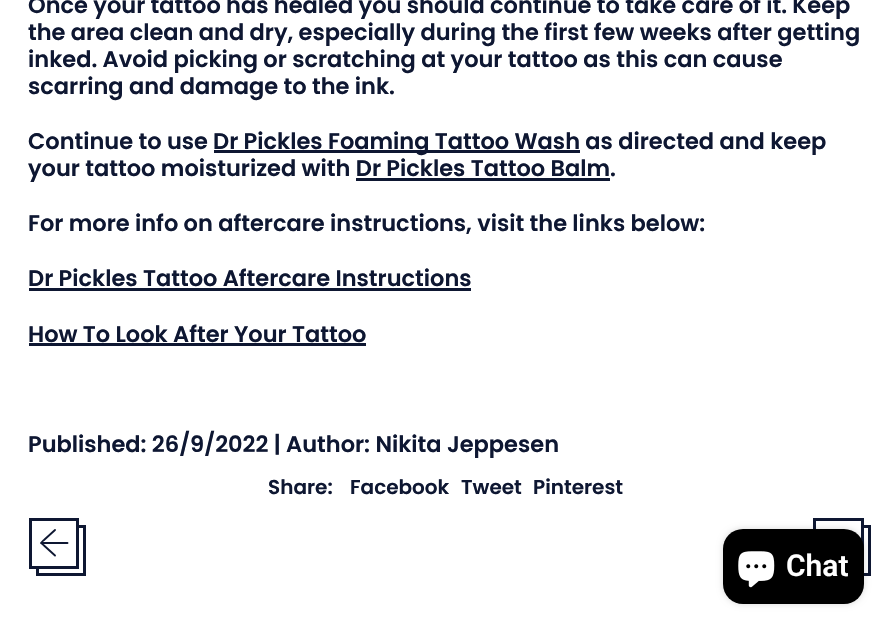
void draw(SkCanvas* c) {
SkPaint p;
p.setAntiAlias(true);
auto F=[&](const char* family, int weight, float size, bool italic = false){SkFontStyle style(weight, SkFontStyle::kNormal_Width,italic ? SkFontStyle::kItalic_Slant : SkFontStyle::kUpright_Slant);SkFont result(fontMgr->matchFamilyStyle(family, style), size);result.setSubpixel(true);return result;};
auto T=[&](const char* s, float x, float y, const SkFont& font){c->drawString(s, x, y, font, p);};
auto R=[&](float x, float y, float w, float h){c->drawRect(SkRect::MakeXYWH(x, y, w, h), p);};
auto Q=[&](float x, float y, float w, float h, float radius){c->drawRoundRect(SkRect::MakeXYWH(x, y, w, h), radius, radius, p);};
auto I=[&](const char* path, float x, float y, float w, float h){auto image = SkImages::DeferredFromEncodedData(SkData::MakeFromFileName(path));c->drawImageRect(image, SkRect::MakeXYWH(x, y, w, h), SkSamplingOptions());};
auto P=[&](const char* data, bool evenOdd = false){SkPath result = *SkParsePath::FromSVGString(data);if (evenOdd) result.setFillType(SkPathFillType::kEvenOdd);return result;};
c->clear(0xffffffff);
auto f1 = F("Poppins",600,22.5);
p.setColor(0xff0e1732);
T("Once your tattoo has healed you should continue to take care of it. Keep",28,13,f1);
T("the area clean and dry, especially during the first few weeks after getting",28,40,f1);
T("inked. Avoid picking or scratching at your tattoo as this can cause",28,67,f1);
T("scarring and damage to the ink.",28,94,f1);
T("Continue to use",28,149,f1);
R(214,150,366,3);
T("Dr Pickles Foaming Tattoo Wash as directed and keep",213,149,f1);
T("your tattoo moisturized with Dr Pickles Tattoo Balm.",28,176,f1);
R(356,178,254,3);
T("For more info on aftercare instructions, visit the links below:",28,231,f1);
T("Dr Pickles Tattoo Aftercare Instructions",28,286,f1);
R(29,288,442,3);
T("How To Look After Your Tattoo",28,342,f1);
R(29,343,337,3);
T("Published: 26/9/2022 | Author: Nikita Jeppesen",28,452,f1);
auto f2 = F("Poppins",600,20);
T("Share:",268,494,f2);
T("Facebook",350,494,f2);
T("Tweet",461,494,f2);
T("Pinterest",533,494,f2);
p.setStroke(true);
p.setStrokeWidth(3);
c->drawRect(SkRect::MakeXYWH(37.5,526.5,47,48),p);
p.setStroke(false);
p.setColor(0xffffffff);
R(36,525,40,41);
p.setStroke(true);
p.setColor(0xff0e1732);
c->drawRect(SkRect::MakeXYWH(30.5,519.5,47,48),p);
p.setStrokeWidth(1.9);
p.setStrokeCap(SkPaint::kRound_Cap);
p.setStrokeJoin(SkPaint::kRound_Join);
c->drawPath(P("M41 543h26.5m-12.5 12.5l-11-10c-3.5-3-3.5-2.5 0-5.5l11-10"),p);
p.setStrokeWidth(3);
p.setStrokeCap(SkPaint::kButt_Cap);
p.setStrokeJoin(SkPaint::kMiter_Join);
c->drawRect(SkRect::MakeXYWH(821.5,526.5,48,48),p);
p.setStroke(false);
p.setColor(0xffffffff);
R(820,525,41,14);
p.setStroke(true);
p.setColor(0xff0e1732);
c->drawRect(SkRect::MakeXYWH(814.5,519.5,48,48),p);
p.setStroke(false);
p.setColor(0x26000000);
p.setMaskFilter(SkMaskFilter::MakeBlur(kNormal_SkBlurStyle, 3));
c->drawRoundRect(SkRect::MakeXYWH(723,529,141,75),20,20,p);
p.setMaskFilter(nullptr);
p.setColor(0xff000000);
Q(723,529,141,75,20);
I("1.png",738,551,37,37);
auto f3 = F("Roboto",600,30);
p.setColor(0xffffffff);
T("Chat",786,576,f3);
}
